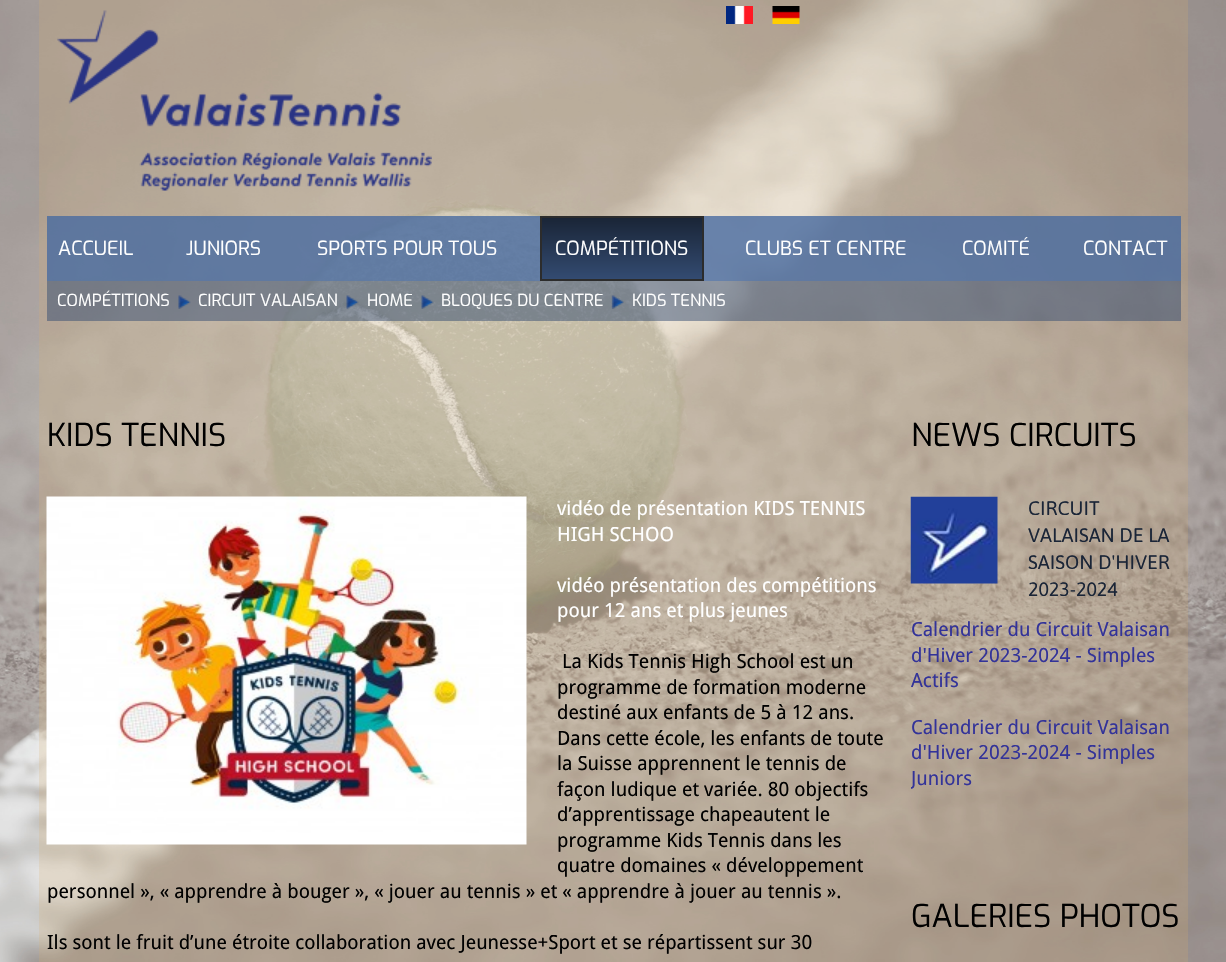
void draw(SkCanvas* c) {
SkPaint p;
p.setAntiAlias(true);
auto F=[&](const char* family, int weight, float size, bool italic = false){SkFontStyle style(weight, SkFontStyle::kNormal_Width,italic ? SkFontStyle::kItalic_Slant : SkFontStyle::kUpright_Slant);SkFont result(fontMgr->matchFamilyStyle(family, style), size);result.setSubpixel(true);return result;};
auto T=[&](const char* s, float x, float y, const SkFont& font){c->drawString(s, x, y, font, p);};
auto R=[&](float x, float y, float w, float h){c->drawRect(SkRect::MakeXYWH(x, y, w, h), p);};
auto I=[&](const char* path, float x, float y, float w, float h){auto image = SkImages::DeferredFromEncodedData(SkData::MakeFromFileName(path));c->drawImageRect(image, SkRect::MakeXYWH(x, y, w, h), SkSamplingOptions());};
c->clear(0xffffffff);
I("1.png",0,0,1226,962);
p.setColor(0x33dcb069);
R(39,0,1149,191);
I("2.png",57,10,375,181);
I("3.png",726,6,27,18);
I("4.png",772,6,28,18);
R(39,191,1149,175);
p.setColor(0x80334b71);
R(47,216,1134,105);
p.setColor(0x994f75af);
R(47,216,1134,65);
auto f1 = F("Exo",400,19.5);
p.setColor(0xffffffff);
T("ACCUEIL",58,255,f1);
T("JUNIORS",186,255,f1);
T("SPORTS POUR TOUS",317,255,f1);
{
const SkColor colors[] = {0xff1a2537,0xff334b71};
const float stops[] = {0,1};
const SkPoint ends[] = {{622,218}, {622,279}};
p.setShader(SkGradientShader::MakeLinear(ends, colors, stops, 2, SkTileMode::kClamp));
p.setAlpha(255);
}
R(542,218,160,61);
p.setStroke(true);
p.setStrokeWidth(2);
p.setShader(nullptr);
p.setColor(0xff2c2c2c);
c->drawRect(SkRect::MakeXYWH(541,217,162,63),p);
p.setStroke(false);
p.setColor(0xffffffff);
T("COMPÉTITIONS",555,255,f1);
T("CLUBS ET CENTRE",745,255,f1);
T("COMITÉ",962,255,f1);
T("CONTACT",1083,255,f1);
auto f2 = F("Exo",400,16.5);
T("COMPÉTITIONS",57,306,f2);
I("5.png",178,295,13,14);
T("CIRCUIT VALAISAN",198,306,f2);
I("6.png",346,295,13,14);
T("HOME",367,306,f2);
I("7.png",421,295,13,14);
T("BLOQUES DU CENTRE",441,306,f2);
I("8.png",611,295,13,14);
T("KIDS TENNIS",632,306,f2);
p.setColor(0x33dcb069);
R(39,366,1149,596);
auto f3 = F("Exo",400,31.5);
p.setColor(0xff000000);
T("KIDS TENNIS",47,446,f3);
I("9.png",46,496,481,349);
auto f4 = F("Droid Sans",400,19.5);
p.setColor(0xffffffff);
T("vidéo de présentation KIDS TENNIS",557,515,f4);
T("HIGH SCHOO",557,541,f4);
T("vidéo présentation des compétitions",557,592,f4);
T("pour 12 ans et plus jeunes",557,617,f4);
p.setColor(0xff000000);
T("La Kids Tennis High School est un",562,668,f4);
T("programme de formation moderne",557,694,f4);
T("destiné aux enfants de 5 à 12 ans.",557,719,f4);
T("Dans cette école, les enfants de toute",557,745,f4);
T("la Suisse apprennent le tennis de",557,770,f4);
T("façon ludique et variée. 80 objectifs",557,796,f4);
T("d’apprentissage chapeautent le",557,821,f4);
T("programme Kids Tennis dans les",557,847,f4);
T("quatre domaines « développement",557,872,f4);
T("personnel », « apprendre à bouger », « jouer au tennis » et « apprendre à jouer au tennis ».",47,898,f4);
T("Ils sont le fruit d’une étroite collaboration avec Jeunesse+Sport et se répartissent sur 30",47,949,f4);
T("NEWS CIRCUITS",911,446,f3);
I("10.png",910,496,88,88);
auto f5 = F("Asap",400,19.5);
p.setColor(0xff1a2537);
T("CIRCUIT",1028,515,f5);
T("VALAISAN DE LA",1028,542,f5);
T("SAISON D'HIVER",1028,569,f5);
T("2023-2024",1028,596,f5);
p.setColor(0xff333399);
T("Calendrier du Circuit Valaisan",911,636,f4);
T("d'Hiver 2023-2024 - Simples",911,662,f4);
T("Actifs",911,687,f4);
T("Calendrier du Circuit Valaisan",911,734,f4);
T("d'Hiver 2023-2024 - Simples",911,759,f4);
c->save();
c->clipRect(SkRect::MakeXYWH(911,497,270,361));
T("Juniors",911,785,f4);
c->restore();
p.setColor(0xff000000);
T("GALERIES PHOTOS",911,927,f3);
}
